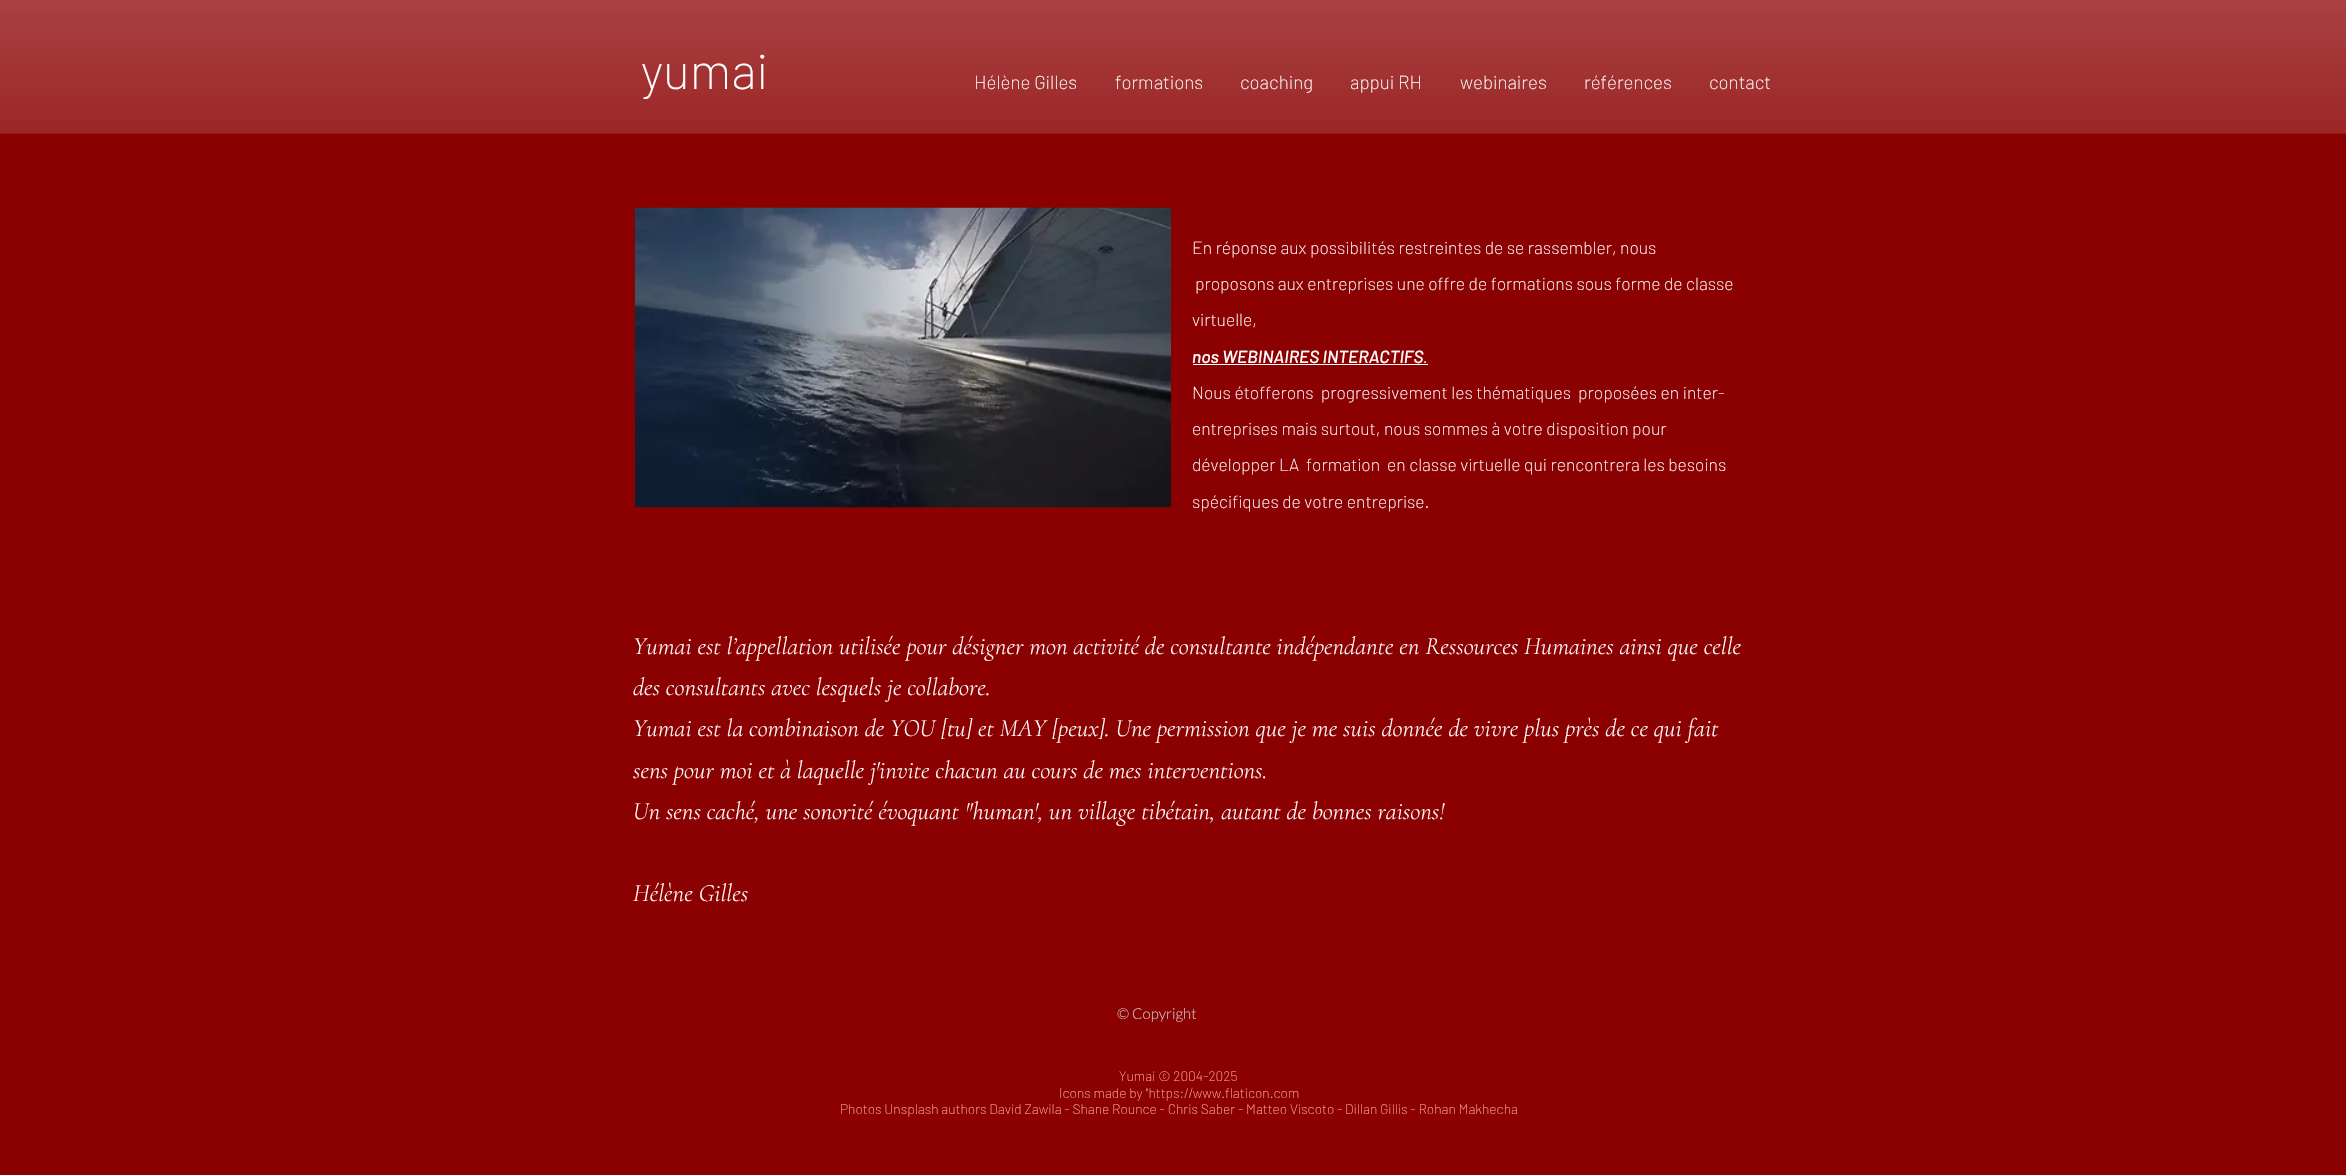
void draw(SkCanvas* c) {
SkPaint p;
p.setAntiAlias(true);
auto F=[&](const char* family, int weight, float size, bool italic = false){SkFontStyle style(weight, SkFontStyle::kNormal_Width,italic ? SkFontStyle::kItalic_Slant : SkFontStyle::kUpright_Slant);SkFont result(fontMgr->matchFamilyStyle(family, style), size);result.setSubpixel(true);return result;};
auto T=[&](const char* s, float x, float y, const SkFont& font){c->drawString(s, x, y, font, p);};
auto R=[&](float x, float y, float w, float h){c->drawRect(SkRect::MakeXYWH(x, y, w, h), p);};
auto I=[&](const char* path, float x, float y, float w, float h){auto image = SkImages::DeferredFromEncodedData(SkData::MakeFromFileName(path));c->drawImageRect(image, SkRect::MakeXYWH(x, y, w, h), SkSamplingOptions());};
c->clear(0xff8b0000);
I("1.png",0,0,2346,134);
auto f1 = F("Barlow",200,50);
p.setColor(0xffffffff);
T("yumai",641,89,f1);
auto f2 = F("Barlow",200,18.75);
T("Hélène Gilles",974,89,f2);
T("formations",1115,89,f2);
T("coaching",1240,89,f2);
T("appui RH",1350,89,f2);
T("webinaires",1460,89,f2);
T("références",1584,89,f2);
T("contact",1709,89,f2);
I("2.png",635,207,537,301);
p.setColor(0xbf8b0000);
R(1171,208,1,299);
auto f3 = F("Barlow",200,17.5);
p.setColor(0xffffffff);
T("En réponse aux possibilités restreintes de se rassembler, nous",1192,254,f3);
T("proposons aux entreprises une offre de formations sous forme de classe",1195,290,f3);
T("virtuelle,",1192,326,f3);
auto f4 = F("Barlow",500,17.5,true);
T("nos WEBINAIRES INTERACTIFS",1192,363,f4);
auto f5 = F("Barlow",200,17.5,true);
T(".",1423,363,f5);
R(1193,364,235,1);
T("Nous étofferons  progressivement les thématiques  proposées en inter-",1192,399,f3);
T("entreprises mais surtout, nous sommes à votre disposition pour",1192,435,f3);
T("développer LA  formation  en classe virtuelle qui rencontrera les besoins",1192,471,f3);
T("spécifiques de votre entreprise.",1192,508,f3);
auto f6 = F("Cormorant Garamond",300,25,true);
T("Yumai est l’appellation utilisée pour désigner mon activité de consultante indépendante en Ressources Humaines ainsi que celle",633,654,f6);
T("des consultants avec lesquels je collabore.",633,695,f6);
T("Yumai est la combinaison de YOU [tu] et MAY [peux]. Une permission que je me suis donnée de vivre plus près de ce qui fait",633,736,f6);
T("sens pour moi et à laquelle j'invite chacun au cours de mes interventions.",633,778,f6);
T("Un sens caché, une sonorité évoquant \"human', un village tibétain, autant de bonnes raisons!",633,819,f6);
T("Hélène Gilles",633,901,f6);
auto f7 = F("Lato",300,15);
p.setColor(0xffc7c7c7);
T("© Copyright",1117,1019,f7);
auto f8 = F("Barlow",200,13.75);
p.setColor(0xfff3a78f);
T("Yumai © 2004-2025",1119,1081,f8);
T("Icons made by \"https://www.flaticon.com",1059,1098,f8);
T("Photos Unsplash authors David Zawila - Shane Rounce - Chris Saber - Matteo Viscoto - Dillan Gillis - Rohan Makhecha",840,1114,f8);
}
